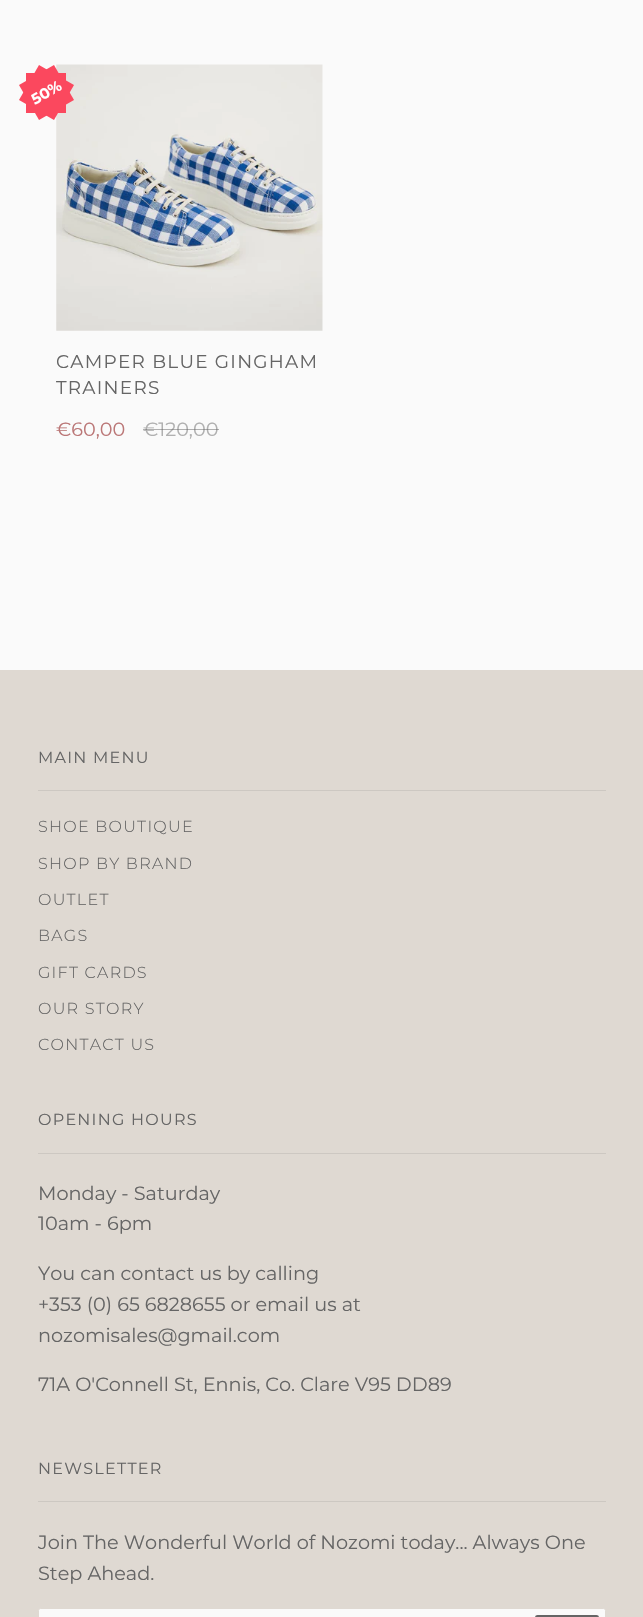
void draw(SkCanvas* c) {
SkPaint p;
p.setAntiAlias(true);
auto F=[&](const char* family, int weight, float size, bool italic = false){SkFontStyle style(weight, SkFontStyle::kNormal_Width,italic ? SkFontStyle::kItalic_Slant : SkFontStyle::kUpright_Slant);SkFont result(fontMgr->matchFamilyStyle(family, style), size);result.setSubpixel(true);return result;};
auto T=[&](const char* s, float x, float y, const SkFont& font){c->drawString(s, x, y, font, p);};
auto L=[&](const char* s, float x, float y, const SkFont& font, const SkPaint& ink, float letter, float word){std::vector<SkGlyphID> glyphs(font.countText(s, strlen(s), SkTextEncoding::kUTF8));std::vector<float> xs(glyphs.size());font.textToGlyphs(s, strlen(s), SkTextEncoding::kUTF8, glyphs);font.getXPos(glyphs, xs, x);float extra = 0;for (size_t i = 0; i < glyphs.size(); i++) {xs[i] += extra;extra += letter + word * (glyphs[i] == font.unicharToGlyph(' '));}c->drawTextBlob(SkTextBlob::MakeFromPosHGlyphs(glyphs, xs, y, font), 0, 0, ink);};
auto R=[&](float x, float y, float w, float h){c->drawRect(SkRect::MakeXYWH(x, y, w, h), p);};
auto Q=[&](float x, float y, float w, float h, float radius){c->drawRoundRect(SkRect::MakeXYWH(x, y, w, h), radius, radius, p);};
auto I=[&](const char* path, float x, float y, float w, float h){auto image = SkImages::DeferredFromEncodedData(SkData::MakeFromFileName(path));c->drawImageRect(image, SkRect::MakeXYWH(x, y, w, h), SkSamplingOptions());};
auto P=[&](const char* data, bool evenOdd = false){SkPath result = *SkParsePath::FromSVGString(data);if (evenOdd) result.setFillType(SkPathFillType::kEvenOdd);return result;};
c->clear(0xfffafafa);
I("1.png",56,64,267,267);
p.setColor(0xfffb485e);
c->drawPath(P("M19 85l35-20l20 35l-35 20z"),p);
R(26,73,40,40);
c->drawPath(P("M19 100l20-35l35 20l-20 35z"),p);
auto f1 = F("Montserrat",700,15);
p.setColor(0xffffffff);
c->save();
c->rotate(-30,35,105);
T("50%",35,105,f1);
c->restore();
auto f2 = F("Montserrat",400,18.4);
p.setColor(0xff656565);
L("CAMPER BLUE GINGHAM",56,368,f2,p,1.25,0);
L("TRAINERS",56,394,f2,p,1.25,0);
auto f3 = F("Montserrat",400,19.25);
p.setColor(0xffbb7777);
T("€60,00",56,436,f3);
p.setColor(0xffb0b0b0);
T("€120,00",143,436,f3);
p.setColor(0x80656565);
R(143,429,76,1);
p.setColor(0xffdfd9d2);
R(0,670,643,947);
auto f4 = F("Montserrat",400,16);
p.setColor(0xff656565);
L("MAIN MENU",38,763,f4,p,1.25,0);
p.setColor(0xffcdc8c2);
R(38,790,568,1);
auto f5 = F("Montserrat",300,16);
p.setColor(0xff656565);
L("SHOE BOUTIQUE",38,832,f5,p,1.25,0);
L("SHOP BY BRAND",38,869,f5,p,1.25,0);
L("OUTLET",38,905,f5,p,1.25,0);
L("BAGS",38,941,f5,p,1.25,0);
L("GIFT CARDS",38,978,f5,p,1.25,0);
L("OUR STORY",38,1014,f5,p,1.25,0);
L("CONTACT US",38,1050,f5,p,1.25,0);
L("OPENING HOURS",38,1125,f4,p,1.25,0);
p.setColor(0xffcdc8c2);
R(38,1153,568,1);
p.setColor(0xff656565);
T("Monday - Saturday",38,1200,f3);
T("10am - 6pm",38,1230,f3);
T("You can contact us by calling",38,1280,f3);
T("+353 (0) 65 6828655 or email us at",38,1311,f3);
T("nozomisales@gmail.com",38,1342,f3);
T("71A O'Connell St, Ennis, Co. Clare V95 DD89",38,1391,f3);
L("NEWSLETTER",38,1474,f4,p,1.25,0);
p.setColor(0xffcdc8c2);
R(38,1501,568,1);
p.setColor(0xff656565);
T("Join The Wonderful World of Nozomi today... Always One",38,1549,f3);
T("Step Ahead.",38,1580,f3);
p.setColor(0xfffafafa);
c->drawRoundRect(SkRect::MakeXYWH(38.5,1608.5,567,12),2,2,p);
p.setStroke(true);
p.setStrokeWidth(1);
p.setColor(0xffdfd9d2);
c->drawRoundRect(SkRect::MakeXYWH(38.5,1608.5,567,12),2,2,p);
p.setStroke(false);
p.setColor(0xff656565);
Q(535,1615,64,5,2.5);
}
